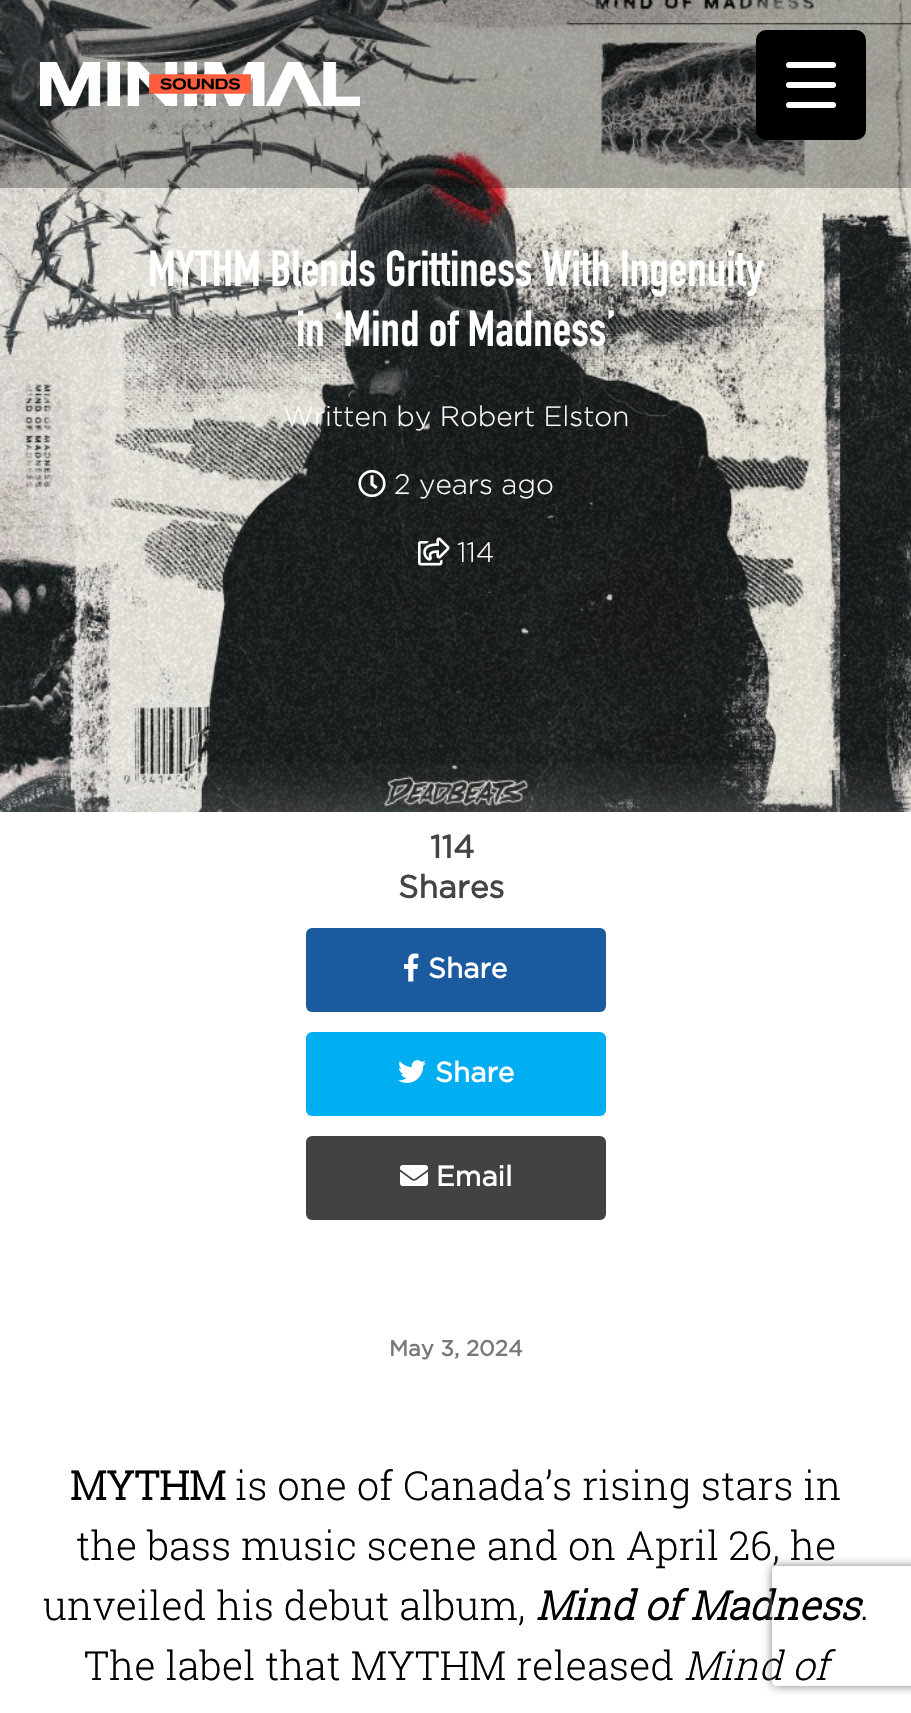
void draw(SkCanvas* c) {
SkPaint p;
p.setAntiAlias(true);
auto F=[&](const char* family, int weight, float size, bool italic = false){SkFontStyle style(weight, SkFontStyle::kNormal_Width,italic ? SkFontStyle::kItalic_Slant : SkFontStyle::kUpright_Slant);SkFont result(fontMgr->matchFamilyStyle(family, style), size);result.setSubpixel(true);return result;};
auto T=[&](const char* s, float x, float y, const SkFont& font){c->drawString(s, x, y, font, p);};
auto R=[&](float x, float y, float w, float h){c->drawRect(SkRect::MakeXYWH(x, y, w, h), p);};
auto Q=[&](float x, float y, float w, float h, float radius){c->drawRoundRect(SkRect::MakeXYWH(x, y, w, h), radius, radius, p);};
auto I=[&](const char* path, float x, float y, float w, float h){auto image = SkImages::DeferredFromEncodedData(SkData::MakeFromFileName(path));c->drawImageRect(image, SkRect::MakeXYWH(x, y, w, h), SkSamplingOptions());};
auto P=[&](const char* data, bool evenOdd = false){SkPath result = *SkParsePath::FromSVGString(data);if (evenOdd) result.setFillType(SkPathFillType::kEvenOdd);return result;};
c->clear(0xffffffff);
I("2.png",0,0,911,812);
I("3.png",0,0,911,812);
p.setColor(0x47000000);
R(0,0,911,188);
I("1.png",40,62,320,44);
p.setColor(0xff000000);
Q(756,30,110,110,10);
p.setColor(0xffffffff);
Q(786,82,50,6,3);
Q(786,62,50,6,3);
Q(786,102,50,6,3);
auto f1 = F("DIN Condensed",700,50);
T("MYTHM Blends Grittiness With Ingenuity",148,286,f1);
T("in ‘Mind of Madness’",296,346,f1);
auto f2 = F("Gotham",300,28);
T("Written by Robert Elston",283,426,f2);
I("4.png",358,469,28,29);
T("2 years ago",394,494,f2);
I("5.png",418,537,32,29);
T("114",457,562,f2);
c->save();
c->clipRect(SkRect::MakeXYWH(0,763,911,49));
p.setColor(0x5cc0c0c0);
p.setMaskFilter(SkMaskFilter::MakeBlur(kNormal_SkBlurStyle, 31));
c->drawRect(SkRect::MakeXYWH(0,812,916,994),p);
p.setMaskFilter(nullptr);
c->restore();
auto f3 = F("Gotham",700,32);
p.setColor(0xff444444);
T("114",430,858,f3);
T("Shares",398,898,f3);
p.setColor(0xff1c5aa0);
Q(306,928,300,84,6);
I("6.png",404,953,15,29);
auto f4 = F("Gotham",700,28);
p.setColor(0xffffffff);
T("Share",428,978,f4);
p.setColor(0xff00aef1);
Q(306,1032,300,84,6);
I("7.png",398,1060,28,23);
p.setColor(0xffffffff);
T("Share",435,1082,f4);
p.setColor(0xff424242);
Q(306,1136,300,84,6);
I("8.png",400,1165,28,21);
p.setColor(0xffffffff);
T("Email",436,1186,f4);
auto f5 = F("Gotham",700,22);
p.setColor(0xff787878);
T("May 3, 2024",389,1356,f5);
auto f6 = F("Roboto Slab",700,40);
p.setColor(0xff000000);
T("MYTHM",70,1500,f6);
auto f7 = F("Roboto Slab",300,40);
T("is one of Canada’s rising stars in",235,1500,f7);
T("the bass music scene and on April 26, he",76,1560,f7);
T("unveiled his debut album,",43,1620,f7);
auto f8 = F("Roboto Slab",700,40,true);
T("Mind of Madness",536,1620,f8);
T(".",860,1620,f7);
T("The label that MYTHM released",84,1680,f7);
auto f9 = F("Roboto Slab",300,40,true);
T("Mind of",684,1680,f9);
c->save();
c->clipPath(P("M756 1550h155v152h-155zm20 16h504c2 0 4 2 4 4v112c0 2-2 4-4 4h-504c-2 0-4-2-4-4v-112c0-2 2-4 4-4z",true),true);
p.setColor(0xff808080);
p.setMaskFilter(SkMaskFilter::MakeBlur(kNormal_SkBlurStyle, 5));
c->drawRoundRect(SkRect::MakeXYWH(772,1566,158,120),4,4,p);
p.setMaskFilter(nullptr);
c->restore();
}
